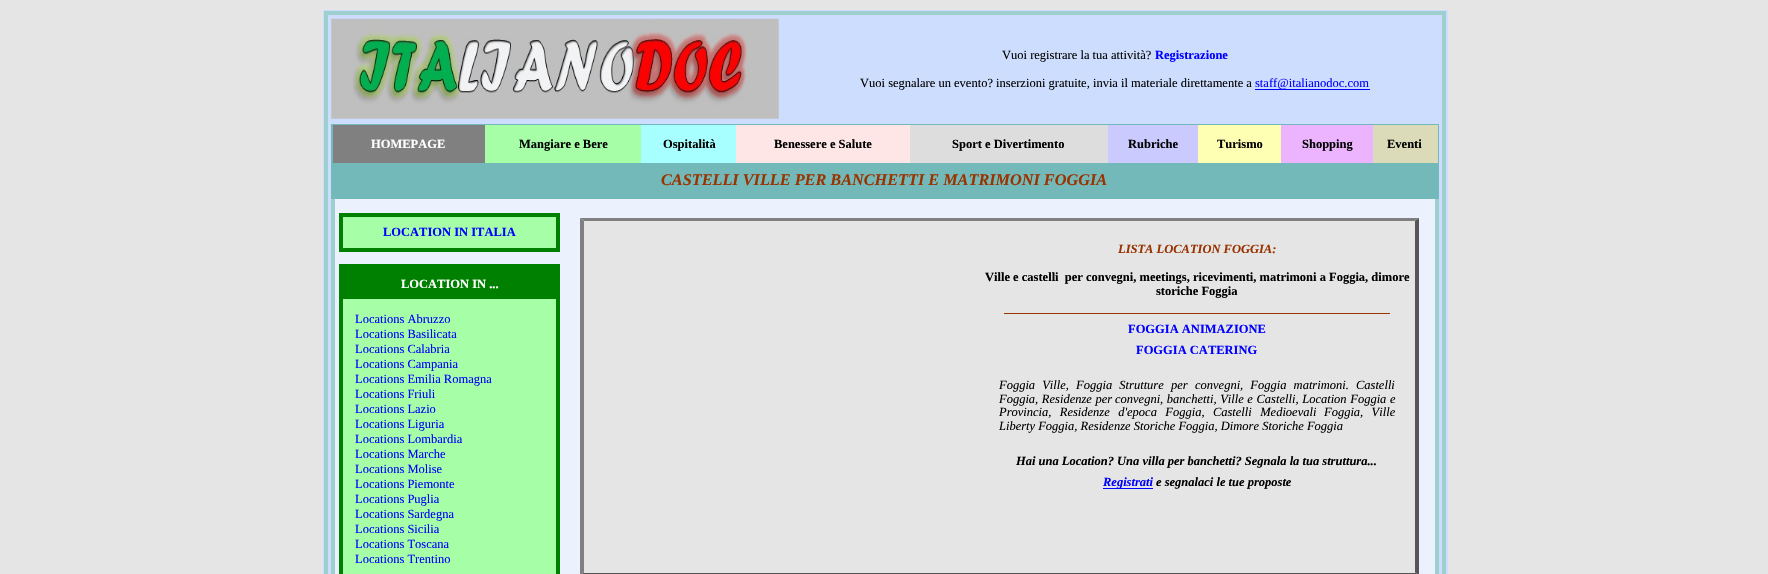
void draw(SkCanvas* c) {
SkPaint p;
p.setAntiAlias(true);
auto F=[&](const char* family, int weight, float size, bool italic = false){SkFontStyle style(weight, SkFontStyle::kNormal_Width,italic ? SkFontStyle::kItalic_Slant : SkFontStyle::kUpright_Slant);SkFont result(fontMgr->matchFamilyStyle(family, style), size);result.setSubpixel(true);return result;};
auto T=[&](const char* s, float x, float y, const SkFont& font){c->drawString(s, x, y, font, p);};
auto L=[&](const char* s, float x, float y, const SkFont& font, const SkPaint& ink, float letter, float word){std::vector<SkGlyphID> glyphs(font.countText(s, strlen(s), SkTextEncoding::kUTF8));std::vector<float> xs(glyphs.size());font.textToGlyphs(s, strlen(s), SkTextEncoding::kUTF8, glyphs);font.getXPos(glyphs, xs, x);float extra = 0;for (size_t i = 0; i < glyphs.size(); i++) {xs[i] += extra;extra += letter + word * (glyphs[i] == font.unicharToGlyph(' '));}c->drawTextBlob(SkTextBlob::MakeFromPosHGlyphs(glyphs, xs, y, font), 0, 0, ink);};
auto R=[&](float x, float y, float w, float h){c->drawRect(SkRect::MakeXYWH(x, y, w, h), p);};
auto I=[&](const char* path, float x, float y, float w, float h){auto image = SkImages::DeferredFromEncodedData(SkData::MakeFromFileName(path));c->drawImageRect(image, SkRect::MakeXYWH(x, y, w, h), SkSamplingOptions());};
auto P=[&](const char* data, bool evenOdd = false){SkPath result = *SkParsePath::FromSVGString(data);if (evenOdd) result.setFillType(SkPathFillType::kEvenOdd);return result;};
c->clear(0xffe5e5e5);
p.setColor(0xffcdddfe);
R(323,10,1125,564);
p.setStroke(true);
p.setStrokeWidth(4);
p.setColor(0xff9ecfcf);
c->drawRect(SkRect::MakeXYWH(326,13,1118,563),p);
I("1.png",331,18,448,101);
auto f1 = F("Liberation Serif",400,12.5);
p.setStroke(false);
p.setColor(0xff000000);
T("Vuoi registrare la tua attività?",1002,59,f1);
auto f2 = F("Liberation Serif",700,12.5);
p.setColor(0xff0000ff);
T("Registrazione",1155,59,f2);
p.setColor(0xff000000);
T("Vuoi segnalare un evento? inserzioni gratuite, invia il materiale direttamente a",860,87,f1);
p.setColor(0xff0000ff);
R(1255,89,115,1);
T("staff@italianodoc.com",1255,87,f1);
p.setColor(0xff73b9b9);
R(331,124,1108,75);
p.setColor(0xff808080);
R(333,125,152,38);
p.setColor(0xffffffff);
T("HOMEPAGE",371,148,f2);
p.setColor(0xffa6ffa6);
R(485,125,156,38);
p.setColor(0xff000000);
T("Mangiare e Bere",519,148,f2);
p.setColor(0xffa8ffff);
R(641,125,95,38);
p.setColor(0xff000000);
T("Ospitalità",663,148,f2);
p.setColor(0xffffe6e6);
R(736,125,174,38);
p.setColor(0xff000000);
T("Benessere e Salute",774,148,f2);
p.setColor(0xffdddddd);
R(910,125,198,38);
p.setColor(0xff000000);
T("Sport e Divertimento",952,148,f2);
p.setColor(0xffcacaff);
R(1108,125,90,38);
p.setColor(0xff000000);
T("Rubriche",1128,148,f2);
p.setColor(0xffffffb3);
R(1198,125,83,38);
p.setColor(0xff000000);
T("Turismo",1217,148,f2);
p.setColor(0xffecb3ff);
R(1281,125,92,38);
p.setColor(0xff000000);
T("Shopping",1302,148,f2);
p.setColor(0xffdbdbb9);
R(1373,125,65,38);
p.setColor(0xff000000);
T("Eventi",1387,148,f2);
auto f3 = F("Liberation Serif",700,16.25,true);
p.setColor(0xff993300);
T("CASTELLI VILLE PER BANCHETTI E MATRIMONI FOGGIA",661,185,f3);
p.setColor(0xff9ecfcf);
R(1435,199,4,375);
R(331,199,4,375);
p.setColor(0xffecf2fd);
R(335,199,1100,375);
p.setColor(0xff008000);
R(339,213,221,4);
R(556,213,4,38);
R(339,248,221,4);
R(339,213,4,38);
p.setColor(0xffa6ffa6);
R(343,217,213,31);
p.setColor(0xff0000ff);
T("LOCATION IN ITALIA",383,236,f2);
p.setColor(0xff008000);
R(339,264,221,4);
R(556,264,4,310);
R(339,264,4,310);
R(343,268,213,31);
p.setColor(0xffffffff);
T("LOCATION IN ...",401,288,f2);
p.setColor(0xffa6ffa6);
R(343,299,213,275);
p.setColor(0xff0000ff);
T("Locations Abruzzo",355,323,f1);
T("Locations Basilicata",355,338,f1);
T("Locations Calabria",355,353,f1);
T("Locations Campania",355,368,f1);
T("Locations Emilia Romagna",355,383,f1);
T("Locations Friuli",355,398,f1);
T("Locations Lazio",355,413,f1);
T("Locations Liguria",355,428,f1);
T("Locations Lombardia",355,443,f1);
T("Locations Marche",355,458,f1);
T("Locations Molise",355,473,f1);
T("Locations Piemonte",355,488,f1);
T("Locations Puglia",355,503,f1);
T("Locations Sardegna",355,518,f1);
T("Locations Sicilia",355,533,f1);
T("Locations Toscana",355,548,f1);
T("Locations Trentino",355,563,f1);
p.setColor(0xff808080);
c->drawPath(P("M580 218h839l-4 3h-831z"),p);
p.setColor(0xff555555);
c->drawPath(P("M1419 218v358l-4-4v-351z"),p);
c->drawPath(P("M1419 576h-839l4-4h831z"),p);
p.setColor(0xff808080);
c->drawPath(P("M580 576v-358l4 3v351z"),p);
p.setColor(0xffe5e5e5);
R(584,221,831,352);
auto f4 = F("Liberation Serif",700,12.5,true);
p.setColor(0xff993300);
T("LISTA LOCATION FOGGIA:",1118,253,f4);
p.setColor(0xff000000);
T("Ville e castelli  per convegni, meetings, ricevimenti, matrimoni a Foggia, dimore",985,281,f2);
T("storiche Foggia",1156,295,f2);
p.setColor(0xff993300);
R(1004,313,386,1);
p.setColor(0xff0000ff);
T("FOGGIA ANIMAZIONE",1128,333,f2);
T("FOGGIA CATERING",1136,354,f2);
auto f5 = F("Liberation Serif",400,12.5,true);
p.setColor(0xff000000);
L("Foggia Ville, Foggia Strutture per",999,389,f5,p,0,4);
L("convegni, Foggia matrimoni. Castelli",1195,389,f5,p,0,4);
L("Foggia, Residenze per",999,403,f5,p,0,.5);
L("convegni, banchetti, Ville e Castelli, Location Foggia e",1115,403,f5,p,0,.5);
L("Provincia, Residenze d'epoca Foggia, Castelli Medioevali",999,416,f5,p,0,5.25);
L("Foggia, Ville",1324,416,f5,p,0,5.25);
T("Liberty Foggia, Residenze Storiche Foggia, Dimore Storiche Foggia",999,430,f5);
T("Hai una Location? Una villa per banchetti? Segnala la tua struttura...",1016,465,f4);
p.setColor(0xff0000ff);
R(1103,488,50,1);
T("Registrati",1103,486,f4);
p.setColor(0xff000000);
T("e segnalaci le tue proposte",1156,486,f4);
}
